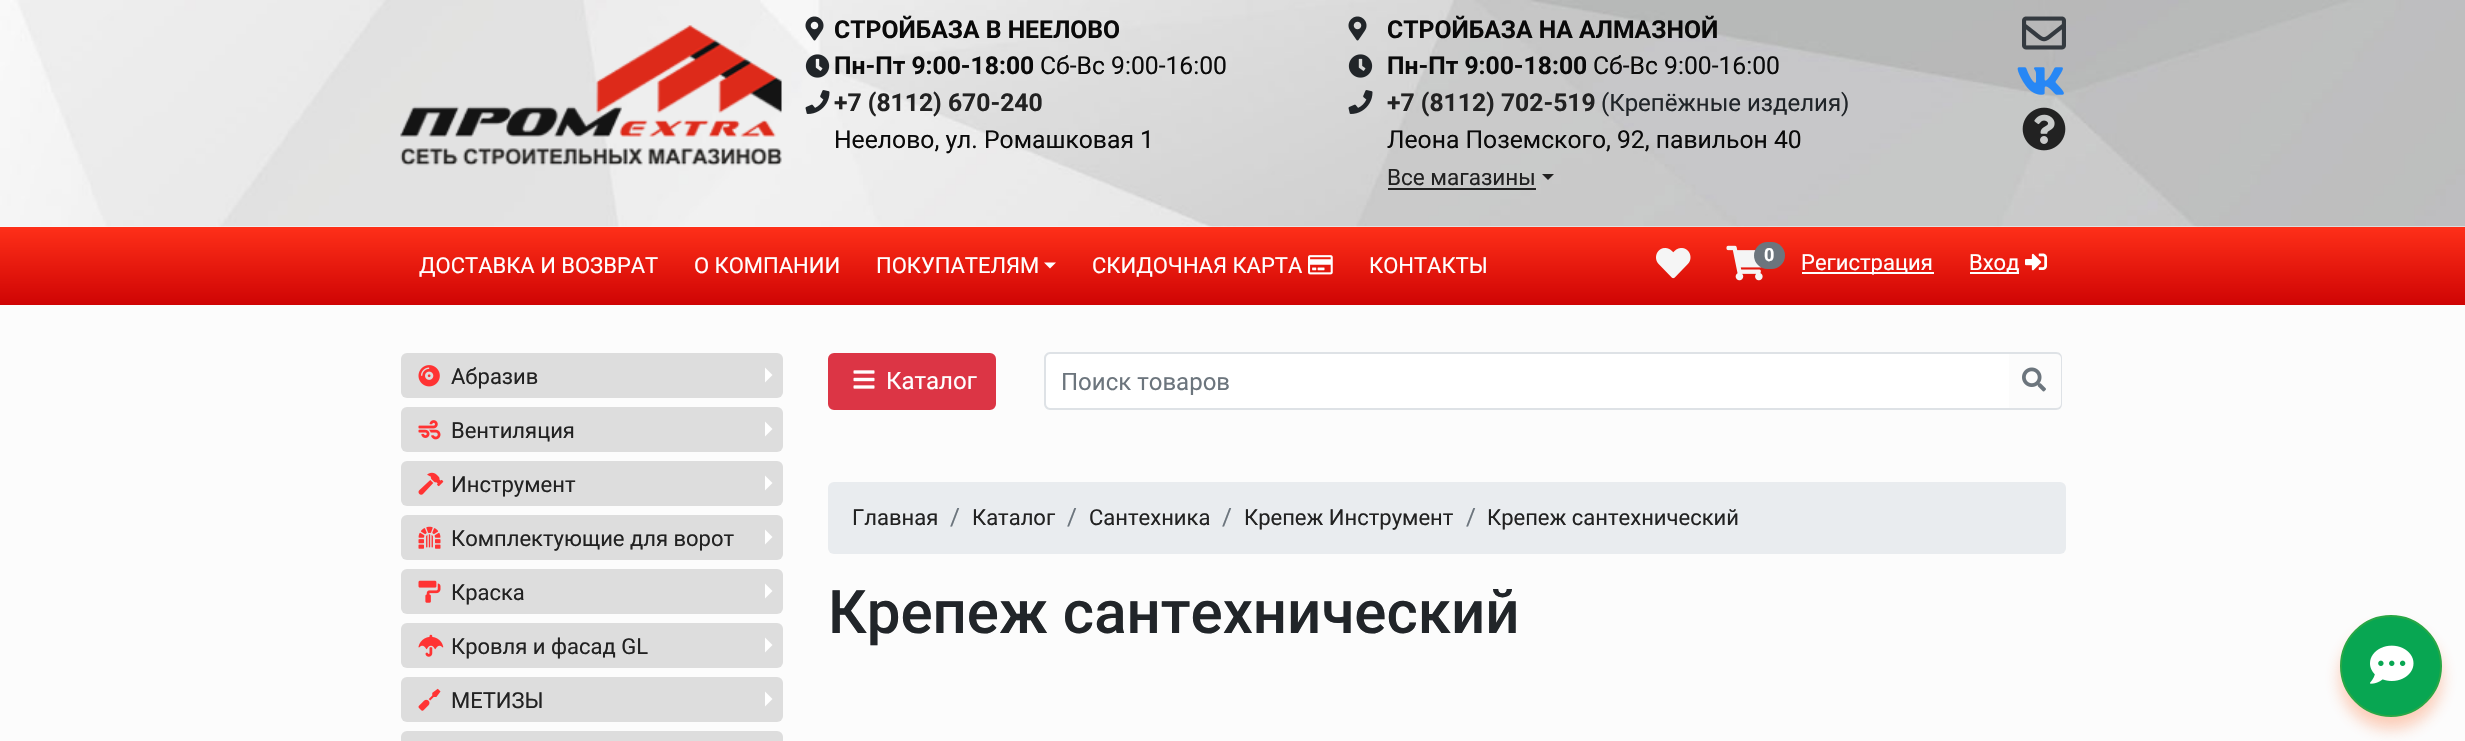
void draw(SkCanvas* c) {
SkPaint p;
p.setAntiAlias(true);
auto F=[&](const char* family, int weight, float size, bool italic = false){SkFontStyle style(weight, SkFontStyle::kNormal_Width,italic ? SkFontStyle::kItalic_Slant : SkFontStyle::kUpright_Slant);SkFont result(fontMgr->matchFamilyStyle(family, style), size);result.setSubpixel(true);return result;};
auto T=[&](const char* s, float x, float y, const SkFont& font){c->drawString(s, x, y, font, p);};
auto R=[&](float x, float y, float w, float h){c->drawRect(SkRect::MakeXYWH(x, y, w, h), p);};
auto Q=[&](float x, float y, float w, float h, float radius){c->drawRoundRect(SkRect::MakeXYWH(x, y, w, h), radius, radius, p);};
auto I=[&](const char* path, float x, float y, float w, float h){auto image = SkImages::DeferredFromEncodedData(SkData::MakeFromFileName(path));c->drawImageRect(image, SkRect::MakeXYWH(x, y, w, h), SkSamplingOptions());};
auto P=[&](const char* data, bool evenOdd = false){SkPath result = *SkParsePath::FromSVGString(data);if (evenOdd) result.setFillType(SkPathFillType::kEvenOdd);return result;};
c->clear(0xfffcfcfc);
I("1.png",0,0,2465,227);
I("2.png",400,25,382,141);
I("3.png",805,16,19,25);
auto f1 = F("Roboto",700,24.7);
p.setColor(0xff0a0a0a);
T("СТРОЙБАЗА В НЕЕЛОВО",834,38,f1);
I("4.png",805,54,25,24);
T("Пн-Пт 9:00-18:00",834,74,f1);
auto f2 = F("Roboto",400,24.7);
T("Сб-Вс 9:00-16:00",1040,74,f2);
I("5.png",805,90,25,24);
p.setColor(0xff222222);
T("+7 (8112) 670-240",834,111,f1);
p.setColor(0xff0a0a0a);
T("Неелово, ул. Ромашковая 1",834,148,f2);
I("6.png",1348,16,19,25);
T("СТРОЙБАЗА НА АЛМАЗНОЙ",1387,38,f1);
I("7.png",1348,54,25,24);
T("Пн-Пт 9:00-18:00",1387,74,f1);
T("Сб-Вс 9:00-16:00",1593,74,f2);
I("8.png",1348,90,25,24);
p.setColor(0xff222222);
T("+7 (8112) 702-519",1387,111,f1);
auto f3 = F("Roboto",400,24);
p.setColor(0xff212529);
T("(Крепёжные изделия)",1601,111,f3);
p.setColor(0xff0a0a0a);
T("Леона Поземского, 92, павильон 40",1387,148,f2);
auto f4 = F("Roboto",400,22.5);
p.setColor(0xff222222);
T("Все магазины",1387,185,f4);
R(1388,188,148,2);
c->drawPath(P("M1542 174h12l-6 6z"),p);
I("9.png",2022,16,44,34);
I("10.png",2017,67,47,28);
I("11.png",2022,107,44,44);
{
const SkColor colors[] = {0xffff3019,0xffcf0404};
const float stops[] = {0,1};
const SkPoint ends[] = {{1233,226}, {1233,305}};
p.setShader(SkGradientShader::MakeLinear(ends, colors, stops, 2, SkTileMode::kClamp));
p.setAlpha(255);
}
R(0,227,2465,78);
auto f5 = F("Roboto",400,22);
p.setShader(nullptr);
p.setColor(0xffffffff);
T("ДОСТАВКА И ВОЗВРАТ",419,273,f5);
T("О КОМПАНИИ",694,273,f5);
T("ПОКУПАТЕЛЯМ",876,273,f5);
c->drawPath(P("M1044 262.5h12l-6 6z"),p);
T("СКИДОЧНАЯ КАРТА",1092,273,f5);
I("12.png",1308,255,25,20);
T("КОНТАКТЫ",1369,273,f5);
I("13.png",1656,248,35,31);
I("14.png",1726,245,37,36);
p.setColor(0xff6c757d);
Q(1754,242,31,27,13.5);
auto f6 = F("Roboto",700,18);
p.setColor(0xffffffff);
T("0",1764,261,f6);
R(1802,272,132,2);
T("Регистрация",1801,270,f5);
R(1970,272,49,2);
T("Вход",1969,270,f5);
I("15.png",2025,253,22,18);
p.setColor(0xffdddddd);
Q(401,353,382,45,6);
I("16.png",418,365,22,22);
p.setColor(0xff222222);
T("Абразив",451,384,f5);
p.setColor(0xffffffff);
c->drawPath(P("M765 382.5v-15l7.5 7.5z"),p);
p.setColor(0xffdddddd);
Q(401,407,382,45,6);
I("17.png",418,420,23,20);
p.setColor(0xff222222);
T("Вентиляция",451,438,f5);
p.setColor(0xffffffff);
c->drawPath(P("M765 436.5v-15l7.5 7.5z"),p);
p.setColor(0xffdddddd);
Q(401,461,382,45,6);
I("18.png",418,472,26,23);
p.setColor(0xff222222);
T("Инструмент",451,492,f5);
p.setColor(0xffffffff);
c->drawPath(P("M765 490.5v-15l7.5 7.5z"),p);
p.setColor(0xffdddddd);
Q(401,515,382,45,6);
I("19.png",418,526,23,23);
p.setColor(0xff222222);
T("Комплектующие для ворот",451,546,f5);
p.setColor(0xffffffff);
c->drawPath(P("M765 544.5v-15l7.5 7.5z"),p);
p.setColor(0xffdddddd);
Q(401,569,382,45,6);
I("20.png",418,580,23,23);
p.setColor(0xff222222);
T("Краска",451,600,f5);
p.setColor(0xffffffff);
c->drawPath(P("M765 598.5v-15l7.5 7.5z"),p);
p.setColor(0xffdddddd);
Q(401,623,382,45,6);
I("21.png",418,634,26,23);
p.setColor(0xff222222);
T("Кровля и фасад GL",451,654,f5);
p.setColor(0xffffffff);
c->drawPath(P("M765 652.5v-15l7.5 7.5z"),p);
p.setColor(0xffdddddd);
Q(401,677,382,45,6);
I("22.png",418,688,23,23);
p.setColor(0xff222222);
T("МЕТИЗЫ",451,708,f5);
p.setColor(0xffffffff);
c->drawPath(P("M765 706.5v-15l7.5 7.5z"),p);
p.setColor(0xffdddddd);
Q(401,731,382,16,6);
p.setColor(0xffdc3545);
c->drawRoundRect(SkRect::MakeXYWH(829,354,166,55),5,5,p);
p.setStroke(true);
p.setStrokeWidth(2);
c->drawRoundRect(SkRect::MakeXYWH(829,354,166,55),5,5,p);
I("23.png",853,370,22,19);
p.setStroke(false);
p.setColor(0xffffffff);
T("Каталог",886,389,f3);
c->drawPath(P("M1051 354h958v54h-958c-3 0-5-2-5-5v-44c0-3 2-5 5-5z"),p);
p.setColor(0xffdee2e6);
c->drawPath(P("M1050 352h958v58h-958c-3 0-6-3-6-6v-46c0-3 3-6 6-6zm0 2h958v54h-958c-2 0-4-2-4-4v-46c0-2 2-4 4-4z",true),p);
p.setColor(0xff6c757d);
T("Поиск товаров",1061,390,f3);
p.setColor(0xffdee2e6);
c->drawPath(P("M2007 352h49c4 0 6 3 6 6v46c0 3-2 6-6 6h-49zm0 2h49c3 0 5 2 5 4v46c0 2-2 4-5 4h-49z",true),p);
I("24.png",2022,367,24,25);
p.setColor(0xffe9ecef);
Q(828,482,1238,72,6);
p.setColor(0xff222222);
T("Главная",852,525,f5);
p.setColor(0xff6c757d);
T("/",950,525,f3);
p.setColor(0xff222222);
T("Каталог",972,525,f5);
p.setColor(0xff6c757d);
T("/",1067,525,f3);
p.setColor(0xff222222);
T("Сантехника",1089,525,f5);
p.setColor(0xff6c757d);
T("/",1222,525,f3);
p.setColor(0xff222222);
T("Крепеж Инструмент",1244,525,f5);
p.setColor(0xff6c757d);
T("/",1466,525,f3);
p.setColor(0xff222222);
T("Крепеж сантехнический",1487,525,f5);
auto f7 = F("Roboto",500,60);
p.setColor(0xff212529);
T("Крепеж сантехнический",828,633,f7);
p.setColor(0x4df95c18);
p.setMaskFilter(SkMaskFilter::MakeBlur(kNormal_SkBlurStyle, 7.5));
c->drawRoundRect(SkRect::MakeXYWH(2340,627,102,102),51,51,p);
p.setMaskFilter(nullptr);
p.setColor(0xff08a652);
c->drawCircle(2391,666,50,p);
p.setStroke(true);
p.setColor(0xff28a745);
c->drawCircle(2391,666,50,p);
I("25.png",2370,645,44,39);
}
